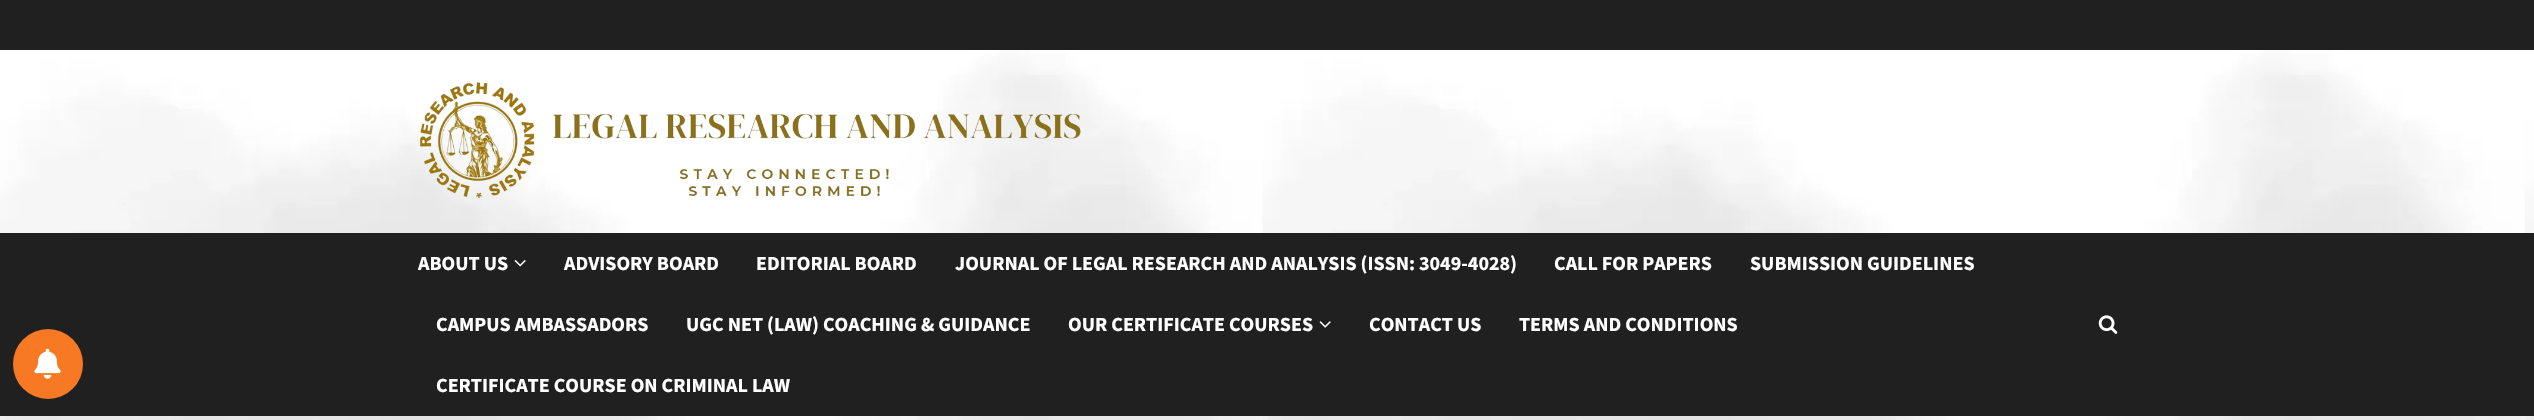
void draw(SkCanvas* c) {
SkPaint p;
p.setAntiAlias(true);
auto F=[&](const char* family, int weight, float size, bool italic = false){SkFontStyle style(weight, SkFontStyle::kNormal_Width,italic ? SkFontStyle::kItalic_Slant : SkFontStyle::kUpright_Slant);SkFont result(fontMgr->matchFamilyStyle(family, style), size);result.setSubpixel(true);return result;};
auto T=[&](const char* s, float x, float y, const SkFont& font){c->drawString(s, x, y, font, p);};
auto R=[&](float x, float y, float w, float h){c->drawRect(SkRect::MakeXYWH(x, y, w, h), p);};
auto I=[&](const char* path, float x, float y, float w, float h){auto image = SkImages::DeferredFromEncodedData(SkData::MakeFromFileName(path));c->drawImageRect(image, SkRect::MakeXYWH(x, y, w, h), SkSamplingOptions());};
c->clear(0xffffffff);
I("1.png",0,50,2534,370);
p.setColor(0xff202020);
R(0,233,2534,183);
p.setColor(0xfff77924);
c->drawCircle(48,364,35,p);
I("2.png",34,348,27,31);
p.setColor(0xff202020);
R(0,0,2534,50);
I("3.png",419,82,662,117);
auto f1 = F("Source Sans Pro",700,20);
p.setColor(0xffffffff);
T("ABOUT US",418,270,f1);
I("4.png",514,260,12,7);
T("ADVISORY BOARD",564,270,f1);
T("EDITORIAL BOARD",756,270,f1);
T("JOURNAL OF LEGAL RESEARCH AND ANALYSIS (ISSN: 3049-4028)",955,270,f1);
T("CALL FOR PAPERS",1554,270,f1);
T("SUBMISSION GUIDELINES",1750,270,f1);
T("CAMPUS AMBASSADORS",436,331,f1);
T("UGC NET (LAW) COACHING & GUIDANCE",686,331,f1);
T("OUR CERTIFICATE COURSES",1068,331,f1);
I("5.png",1319,321,12,7);
T("CONTACT US",1369,331,f1);
T("TERMS AND CONDITIONS",1519,331,f1);
T("CERTIFICATE COURSE ON CRIMINAL LAW",436,392,f1);
I("6.png",2098,315,20,19);
}
